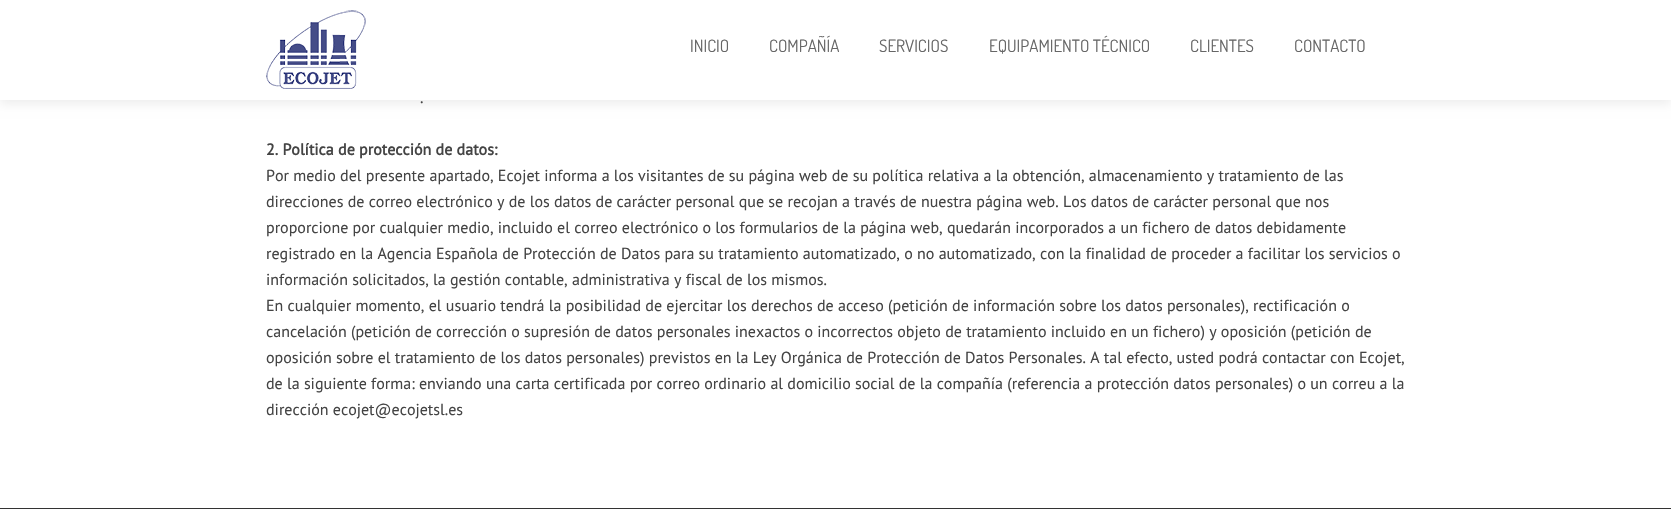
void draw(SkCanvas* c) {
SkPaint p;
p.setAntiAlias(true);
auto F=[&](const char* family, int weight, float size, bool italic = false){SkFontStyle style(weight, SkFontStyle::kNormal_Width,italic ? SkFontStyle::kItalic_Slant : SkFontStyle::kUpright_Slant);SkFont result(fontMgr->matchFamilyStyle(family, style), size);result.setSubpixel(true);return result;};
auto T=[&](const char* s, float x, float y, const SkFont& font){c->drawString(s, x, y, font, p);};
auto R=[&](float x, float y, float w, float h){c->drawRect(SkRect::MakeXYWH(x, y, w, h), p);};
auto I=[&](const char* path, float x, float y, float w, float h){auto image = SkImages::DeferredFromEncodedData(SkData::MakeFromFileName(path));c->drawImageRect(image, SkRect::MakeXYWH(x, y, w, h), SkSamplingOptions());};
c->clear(0xff333333);
p.setColor(0xffffffff);
R(0,100,1671,408);
p.setColor(0x12000000);
p.setMaskFilter(SkMaskFilter::MakeBlur(kNormal_SkBlurStyle, 5));
c->drawRect(SkRect::MakeXYWH(0,4,1671,100),p);
p.setMaskFilter(nullptr);
p.setColor(0xffffffff);
R(0,0,1671,100);
I("1.png",266,10,100,79);
auto f1 = F("Dosis",400,17);
p.setColor(0xff666666);
T("INICIO",690,52,f1);
T("COMPAÑÍA",769,52,f1);
T("SERVICIOS",879,52,f1);
T("EQUIPAMIENTO TÉCNICO",989,52,f1);
T("CLIENTES",1190,52,f1);
T("CONTACTO",1294,52,f1);
auto f2 = F("PT Sans",400,16);
p.setColor(0xff444444);
T(".",420,103,f2);
auto f3 = F("PT Sans",700,16);
T("2. Política de protección de datos:",266,155,f3);
T("Por medio del presente apartado, Ecojet informa a los visitantes de su página web de su política relativa a la obtención, almacenamiento y tratamiento de las",266,181,f2);
T("direcciones de correo electrónico y de los datos de carácter personal que se recojan a través de nuestra página web. Los datos de carácter personal que nos",266,207,f2);
T("proporcione por cualquier medio, incluido el correo electrónico o los formularios de la página web, quedarán incorporados a un fichero de datos debidamente",266,233,f2);
T("registrado en la Agencia Española de Protección de Datos para su tratamiento automatizado, o no automatizado, con la finalidad de proceder a facilitar los servicios o",266,259,f2);
T("información solicitados, la gestión contable, administrativa y fiscal de los mismos.",266,285,f2);
T("En cualquier momento, el usuario tendrá la posibilidad de ejercitar los derechos de acceso (petición de información sobre los datos personales), rectificación o",266,311,f2);
T("cancelación (petición de corrección o supresión de datos personales inexactos o incorrectos objeto de tratamiento incluido en un fichero) y oposición (petición de",266,337,f2);
T("oposición sobre el tratamiento de los datos personales) previstos en la Ley Orgánica de Protección de Datos Personales. A tal efecto, usted podrá contactar con Ecojet,",266,363,f2);
T("de la siguiente forma: enviando una carta certificada por correo ordinario al domicilio social de la compañía (referencia a protección datos personales) o un correu a la",266,389,f2);
T("dirección ecojet@ecojetsl.es",266,415,f2);
}
